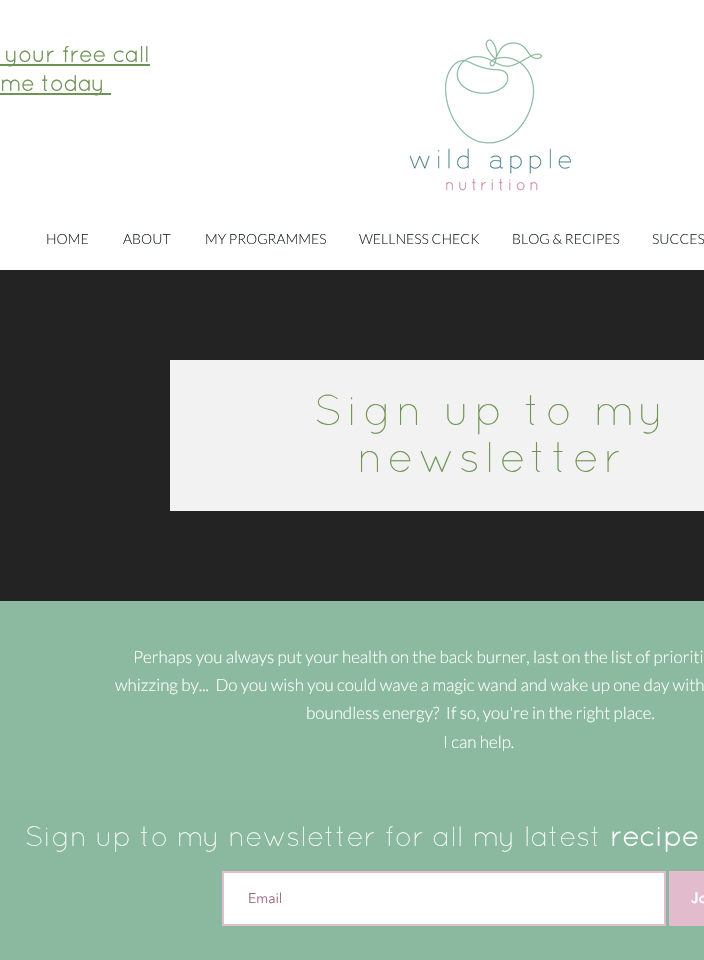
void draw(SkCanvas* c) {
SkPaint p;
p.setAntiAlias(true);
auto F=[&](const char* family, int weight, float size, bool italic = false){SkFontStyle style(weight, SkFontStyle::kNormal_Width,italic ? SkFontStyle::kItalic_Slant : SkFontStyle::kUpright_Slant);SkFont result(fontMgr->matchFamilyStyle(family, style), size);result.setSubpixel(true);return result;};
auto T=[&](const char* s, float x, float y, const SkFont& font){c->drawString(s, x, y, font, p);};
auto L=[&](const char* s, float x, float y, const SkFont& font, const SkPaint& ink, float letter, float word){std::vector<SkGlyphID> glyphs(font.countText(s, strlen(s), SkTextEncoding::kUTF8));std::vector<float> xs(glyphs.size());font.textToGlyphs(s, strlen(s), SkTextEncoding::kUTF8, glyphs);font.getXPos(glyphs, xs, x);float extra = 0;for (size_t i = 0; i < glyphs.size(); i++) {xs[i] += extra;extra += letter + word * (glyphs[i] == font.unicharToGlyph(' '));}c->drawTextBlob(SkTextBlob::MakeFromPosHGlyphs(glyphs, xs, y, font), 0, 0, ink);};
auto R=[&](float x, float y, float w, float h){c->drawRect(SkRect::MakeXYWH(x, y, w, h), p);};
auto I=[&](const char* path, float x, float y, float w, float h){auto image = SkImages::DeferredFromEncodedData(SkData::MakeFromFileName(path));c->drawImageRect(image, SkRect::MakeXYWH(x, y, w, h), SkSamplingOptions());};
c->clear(0xffffffff);
p.setColor(0xff6f9355);
R(0,64,150,2);
auto f1 = F("Quicksand",700,22);
T("your free call",5,62,f1);
R(0,93,111,2);
T("me today",0,91,f1);
I("1.png",409,39,163,152);
auto f2 = F("Lato",300,14);
p.setColor(0xff1c2326);
T("HOME",46,244,f2);
T("ABOUT",123,244,f2);
T("MY PROGRAMMES",205,244,f2);
T("WELLNESS CHECK",359,244,f2);
T("BLOG & RECIPES",512,244,f2);
T("SUCCES",652,244,f2);
p.setColor(0xff242323);
R(0,270,704,331);
p.setColor(0xfff2f2f2);
R(170,360,534,151);
auto f3 = F("Quicksand",300,43);
p.setColor(0xff6f9355);
L("Sign up to my",314,425,f3,p,4.25,0);
L("newsletter",357,472,f3,p,4.25,0);
p.setColor(0xff8cbaa1);
R(0,601,704,198);
auto f4 = F("Lato",300,17);
p.setColor(0xffffffff);
T("Perhaps you always put your health on the back burner, last on the list of prioriti",133,663,f4);
T("whizzing by...  Do you wish you could wave a magic wand and wake up one day with",115,691,f4);
T("boundless energy?  If so, you're in the right place.",306,719,f4);
T("I can help.",443,748,f4);
p.setColor(0xff8bb9a0);
R(0,799,704,161);
auto f5 = F("Quicksand",300,28);
p.setColor(0xffffffff);
T("Sign up to my newsletter for all my latest",25,846,f5);
auto f6 = F("Quicksand",700,28);
T("recipe",610,846,f6);
c->drawRect(SkRect::MakeXYWH(223,872,442,53),p);
p.setStroke(true);
p.setStrokeWidth(2);
p.setColor(0xffe3bcce);
c->drawRect(SkRect::MakeXYWH(223,872,442,53),p);
auto f7 = F("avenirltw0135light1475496",300,14);
p.setStroke(false);
p.setColor(0xff95627a);
T("Email",248,903,f7);
p.setColor(0xffe2bbcd);
R(669,871,35,55);
auto f8 = F("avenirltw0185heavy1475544",900,15);
p.setColor(0xffffffff);
T("Jo",691,903,f8);
}
